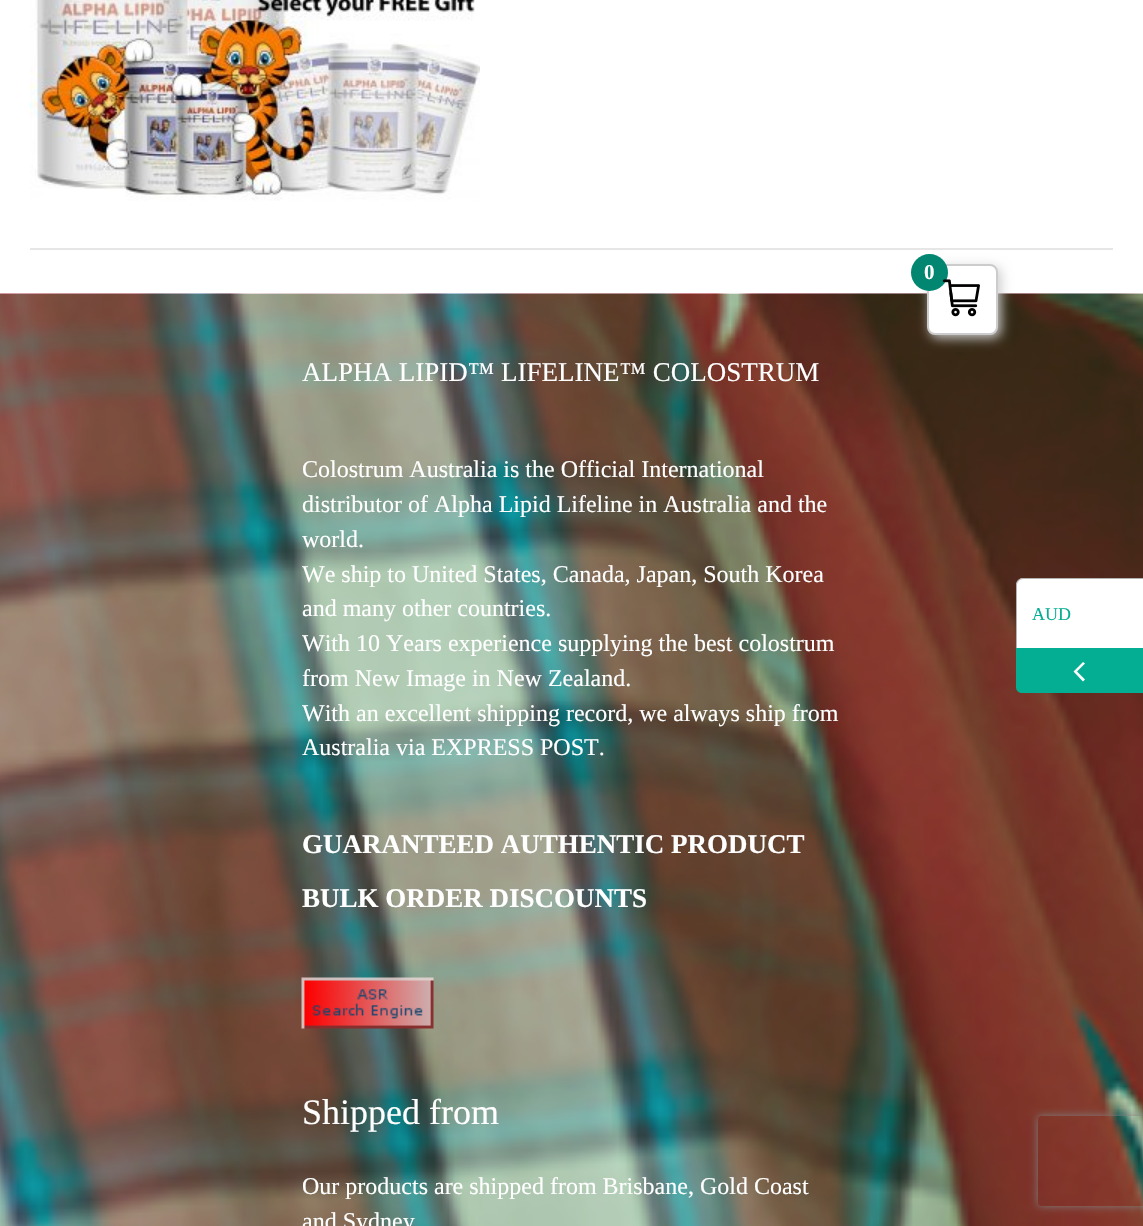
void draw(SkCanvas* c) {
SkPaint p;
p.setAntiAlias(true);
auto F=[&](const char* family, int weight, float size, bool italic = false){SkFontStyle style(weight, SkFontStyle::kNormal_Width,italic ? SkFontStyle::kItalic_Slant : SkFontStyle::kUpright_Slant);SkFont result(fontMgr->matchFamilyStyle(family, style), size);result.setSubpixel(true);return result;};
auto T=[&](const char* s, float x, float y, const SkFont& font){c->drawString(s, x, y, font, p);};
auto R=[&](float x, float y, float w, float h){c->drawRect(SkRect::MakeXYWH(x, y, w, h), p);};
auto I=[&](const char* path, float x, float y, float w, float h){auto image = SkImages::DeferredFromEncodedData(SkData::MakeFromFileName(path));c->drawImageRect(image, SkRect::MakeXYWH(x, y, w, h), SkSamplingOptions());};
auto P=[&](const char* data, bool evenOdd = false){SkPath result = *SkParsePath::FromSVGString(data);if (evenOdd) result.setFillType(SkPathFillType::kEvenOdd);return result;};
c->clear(0xffffffff);
p.setColor(0xffe6e6e6);
R(30,248,1083,2);
I("3.png",0,293,1143,933);
p.setColor(0xffcccccc);
p.setMaskFilter(SkMaskFilter::MakeBlur(kNormal_SkBlurStyle, 6));
c->drawRoundRect(SkRect::MakeXYWH(930,267,71,71),8,8,p);
p.setMaskFilter(nullptr);
p.setColor(0xffffffff);
c->drawRoundRect(SkRect::MakeXYWH(928,265,69,69),7,7,p);
p.setStroke(true);
p.setStrokeWidth(2);
p.setColor(0xffcccccc);
c->drawRoundRect(SkRect::MakeXYWH(928,265,69,69),7,7,p);
p.setStroke(false);
p.setColor(0xff008671);
c->drawCircle(929.5,272.5,18.5,p);
auto f1 = F("Liberation Serif",700,21);
p.setColor(0xffffffff);
T("0",924,279,f1);
I("1.png",942,279,38,38);
I("2.png",30,0,450,201);
auto f2 = F("Liberation Serif",400,27);
T("ALPHA LIPID™ LIFELINE™ COLOSTRUM",302,381,f2);
auto f3 = F("Liberation Serif",400,24);
T("Colostrum Australia is the Official International",302,477,f3);
T("distributor of Alpha Lipid Lifeline in Australia and the",302,512,f3);
T("world.",302,547,f3);
T("We ship to United States, Canada, Japan, South Korea",302,582,f3);
T("and many other countries.",302,616,f3);
T("With 10 Years experience supplying the best colostrum",302,651,f3);
T("from New Image in New Zealand.",302,686,f3);
T("With an excellent shipping record, we always ship from",302,721,f3);
T("Australia via EXPRESS POST.",302,755,f3);
auto f4 = F("Liberation Serif",700,27);
T("GUARANTEED AUTHENTIC PRODUCT",302,853,f4);
T("BULK ORDER DISCOUNTS",302,907,f4);
I("4.png",301,977,133,52);
auto f5 = F("Liberation Serif",400,36);
T("Shipped from",302,1124,f5);
T("Our products are shipped from Brisbane, Gold Coast",302,1194,f3);
T("and Sydney",302,1229,f3);
c->save();
c->clipPath(P("M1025 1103h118v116h-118zm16 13h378c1.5 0 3 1.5 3 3v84c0 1.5-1.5 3-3 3h-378c-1.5 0-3-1.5-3-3v-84c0-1.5 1.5-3 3-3z",true),true);
p.setColor(0xff808080);
p.setMaskFilter(SkMaskFilter::MakeBlur(kNormal_SkBlurStyle, 4));
c->drawRoundRect(SkRect::MakeXYWH(1038,1116,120,90),3,3,p);
p.setMaskFilter(nullptr);
c->restore();
p.setColor(0xffffffff);
c->drawPath(P("M1024 578h119v70h-127v-62c0-4.5 3.5-8 8-8z"),p);
p.setColor(0xffb2b2b2);
c->drawPath(P("M1023 578h120v70h-127v-63c0-4 3-7 7-7zm0 1h120v69h-126v-63c0-3 3-6 6-6z",true),p);
auto f6 = F("Liberation Serif",400,18);
p.setColor(0xff04ae93);
T("AUD",1032,620,f6);
c->drawPath(P("M1016 648h127v45h-121c-3.5 0-6-2.5-6-6z"),p);
p.setColor(0xffffffff);
c->drawPath(P("M1083 681.5l2-2l-8-8l8-8l-2-1.5l-9.5 9.5z"),p);
}
